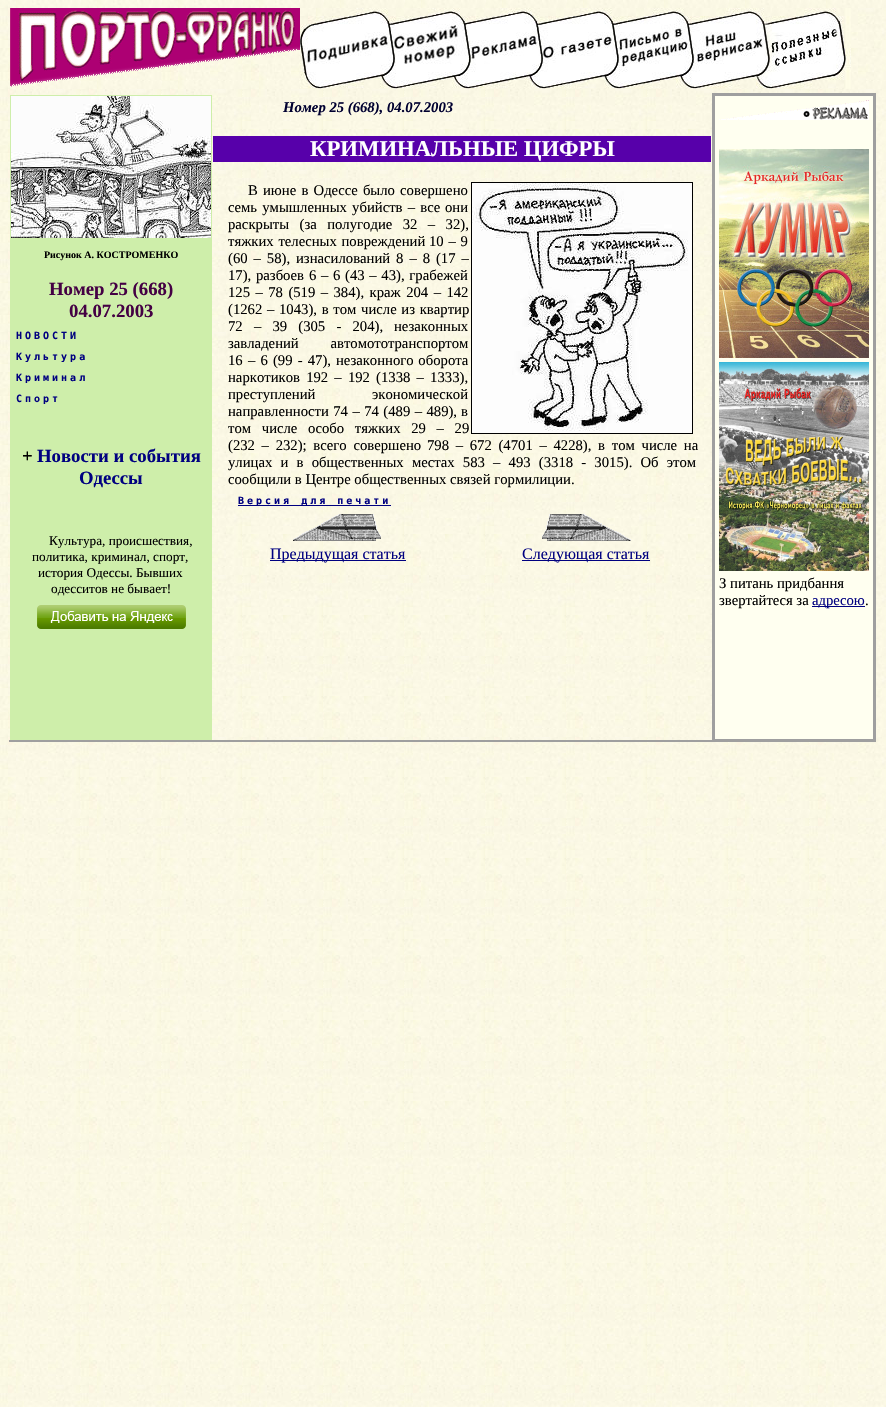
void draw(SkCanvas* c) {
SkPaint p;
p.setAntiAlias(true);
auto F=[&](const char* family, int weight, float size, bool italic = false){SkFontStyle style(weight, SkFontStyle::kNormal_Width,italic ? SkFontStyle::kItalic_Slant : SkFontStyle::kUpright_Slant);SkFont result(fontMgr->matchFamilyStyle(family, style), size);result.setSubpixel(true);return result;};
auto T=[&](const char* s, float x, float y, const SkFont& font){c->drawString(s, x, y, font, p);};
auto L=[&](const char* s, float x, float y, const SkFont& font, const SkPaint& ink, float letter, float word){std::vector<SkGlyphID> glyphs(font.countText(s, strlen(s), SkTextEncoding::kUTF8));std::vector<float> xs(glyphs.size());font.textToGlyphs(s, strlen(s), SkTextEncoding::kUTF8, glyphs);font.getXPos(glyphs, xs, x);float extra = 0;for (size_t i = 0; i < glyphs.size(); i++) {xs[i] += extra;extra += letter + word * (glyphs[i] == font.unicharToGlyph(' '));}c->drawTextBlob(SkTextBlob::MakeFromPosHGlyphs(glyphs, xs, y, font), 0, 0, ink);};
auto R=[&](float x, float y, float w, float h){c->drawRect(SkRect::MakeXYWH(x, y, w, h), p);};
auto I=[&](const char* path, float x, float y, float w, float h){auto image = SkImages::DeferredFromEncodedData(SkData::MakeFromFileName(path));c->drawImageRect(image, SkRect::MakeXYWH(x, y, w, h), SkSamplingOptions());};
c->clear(0xffffffff);
I("1.png",0,0,886,1407);
I("2.png",10,8,290,79);
I("3.png",300,8,551,81);
p.setColor(0xffceeeaa);
R(10,95,202,645);
I("4.png",11,96,200,142);
auto f1 = F("Liberation Serif",700,10);
p.setColor(0xff000000);
T("Рисунок А. КОСТРОМЕНКО",44,258,f1);
auto f2 = F("Liberation Serif",700,18.75);
p.setColor(0xff440044);
T("Номер 25 (668)",49,295,f2);
T("04.07.2003",69,317,f2);
auto f3 = F("DejaVu Sans Mono",700,10);
p.setColor(0xff000080);
L("НОВОСТИ",16,339,f3,p,3,0);
L("Культура",16,360,f3,p,3,0);
L("Криминал",16,381,f3,p,3,0);
L("Спорт",16,402,f3,p,3,0);
p.setColor(0xff000000);
T("+",22,462,f2);
p.setColor(0xff000080);
T("Новости и события",37,462,f2);
T("Одессы",79,484,f2);
auto f4 = F("Liberation Serif",400,13.25);
p.setColor(0xff000000);
T("Культура, происшествия,",49,545,f4);
T("политика, криминал, спорт,",32,561,f4);
T("история Одессы. Бывших",38,577,f4);
T("одесситов не бывает!",51,593,f4);
I("5.png",37,605,149,24);
auto f5 = F("Liberation Serif",700,14.7,true);
p.setColor(0xff000030);
T("Номер 25 (668), 04.07.2003",283,112,f5);
p.setColor(0xff5700aa);
R(213,136,498,26);
auto f6 = F("Liberation Serif",700,22.7);
p.setColor(0xffffffff);
T("КРИМИНАЛЬНЫЕ ЦИФРЫ",310,156,f6);
auto f7 = F("Liberation Serif",400,14.7);
p.setColor(0xff000000);
L("В июне в Одессе было совершено",248,195,f7,p,0,1.5);
p.setStroke(true);
p.setStrokeWidth(1);
c->drawRect(SkRect::MakeXYWH(471.5,182.5,221,251),p);
I("6.png",472,183,220,250);
p.setStroke(false);
L("семь умышленных убийств – все",228,212,f7,p,0,1.5);
T("они",445,212,f7);
L("раскрыты (за полугодие 32 – 32),",228,229,f7,p,0,6.75);
L("тяжких телесных повреждений",228,246,f7,p,0,1);
L("10 – 9",429,246,f7,p,0,1);
L("(60 – 58), изнасилований 8 – 8 (17 –",228,263,f7,p,0,2.25);
L("17), разбоев",228,280,f7,p,0,1);
L("6 – 6 (43 – 43), грабежей",309,280,f7,p,0,1);
L("125 – 78 (519 – 384), краж 204 – 142",228,297,f7,p,0,1.75);
L("(1262 – 1043), в том числе из квартир",228,314,f7,p,0,1);
L("72 – 39 (305 - 204),",228,331,f7,p,0,7.5);
T("незаконных",394,331,f7);
L("завладений автомототранспортом",228,348,f7,p,0,28);
L("16 – 6 (99 - 47),",228,365,f7,p,0,1.5);
L("незаконного оборота",336,365,f7,p,0,1);
L("наркотиков 192 – 192 (1338 – 1333),",228,382,f7,p,0,2.5);
L("преступлений экономической",228,399,f7,p,0,53);
L("направленности 74 – 74 (489 – 489),",228,416,f7,p,0,.75);
T("в",461,416,f7);
L("том числе особо тяжких 29 – 29",228,433,f7,p,0,7);
L("(232 – 232); всего совершено",228,450,f7,p,0,3);
L("798 – 672 (4701 – 4228), в том числе на",427,450,f7,p,0,3);
L("улицах и в общественных",228,467,f7,p,0,4.5);
L("местах 583 – 493 (3318 - 3015). Об этом",412,467,f7,p,0,4.5);
T("сообщили в Центре общественных связей гормилиции.",228,484,f7);
p.setColor(0xff000080);
R(238,505,153,1);
L("Версия для печати",238,504,f3,p,3,0);
I("7.png",293,514,88,27);
R(270,560,136,1);
auto f8 = F("Liberation Serif",400,16);
T("Предыдущая статья",270,559,f8);
I("8.png",542,514,89,27);
R(522,560,128,1);
T("Следующая статья",522,559,f8);
p.setColor(0xfffffff0);
R(715,96,158,643);
p.setColor(0xff9f9f9f);
R(712,93,164,3);
R(873,93,3,649);
R(712,739,164,3);
R(712,93,3,649);
I("9.png",719,100,150,20);
I("10.png",719,149,150,209);
I("11.png",719,362,150,209);
p.setColor(0xff000000);
T("З питань придбання",719,588,f7);
T("звертайтеся за",719,605,f7);
p.setColor(0xff000080);
R(812,606,53,1);
T("адресою",812,605,f7);
p.setColor(0xff000000);
T(".",865,605,f7);
p.setColor(0xff9f9f9f);
R(9,740,703,2);
}
